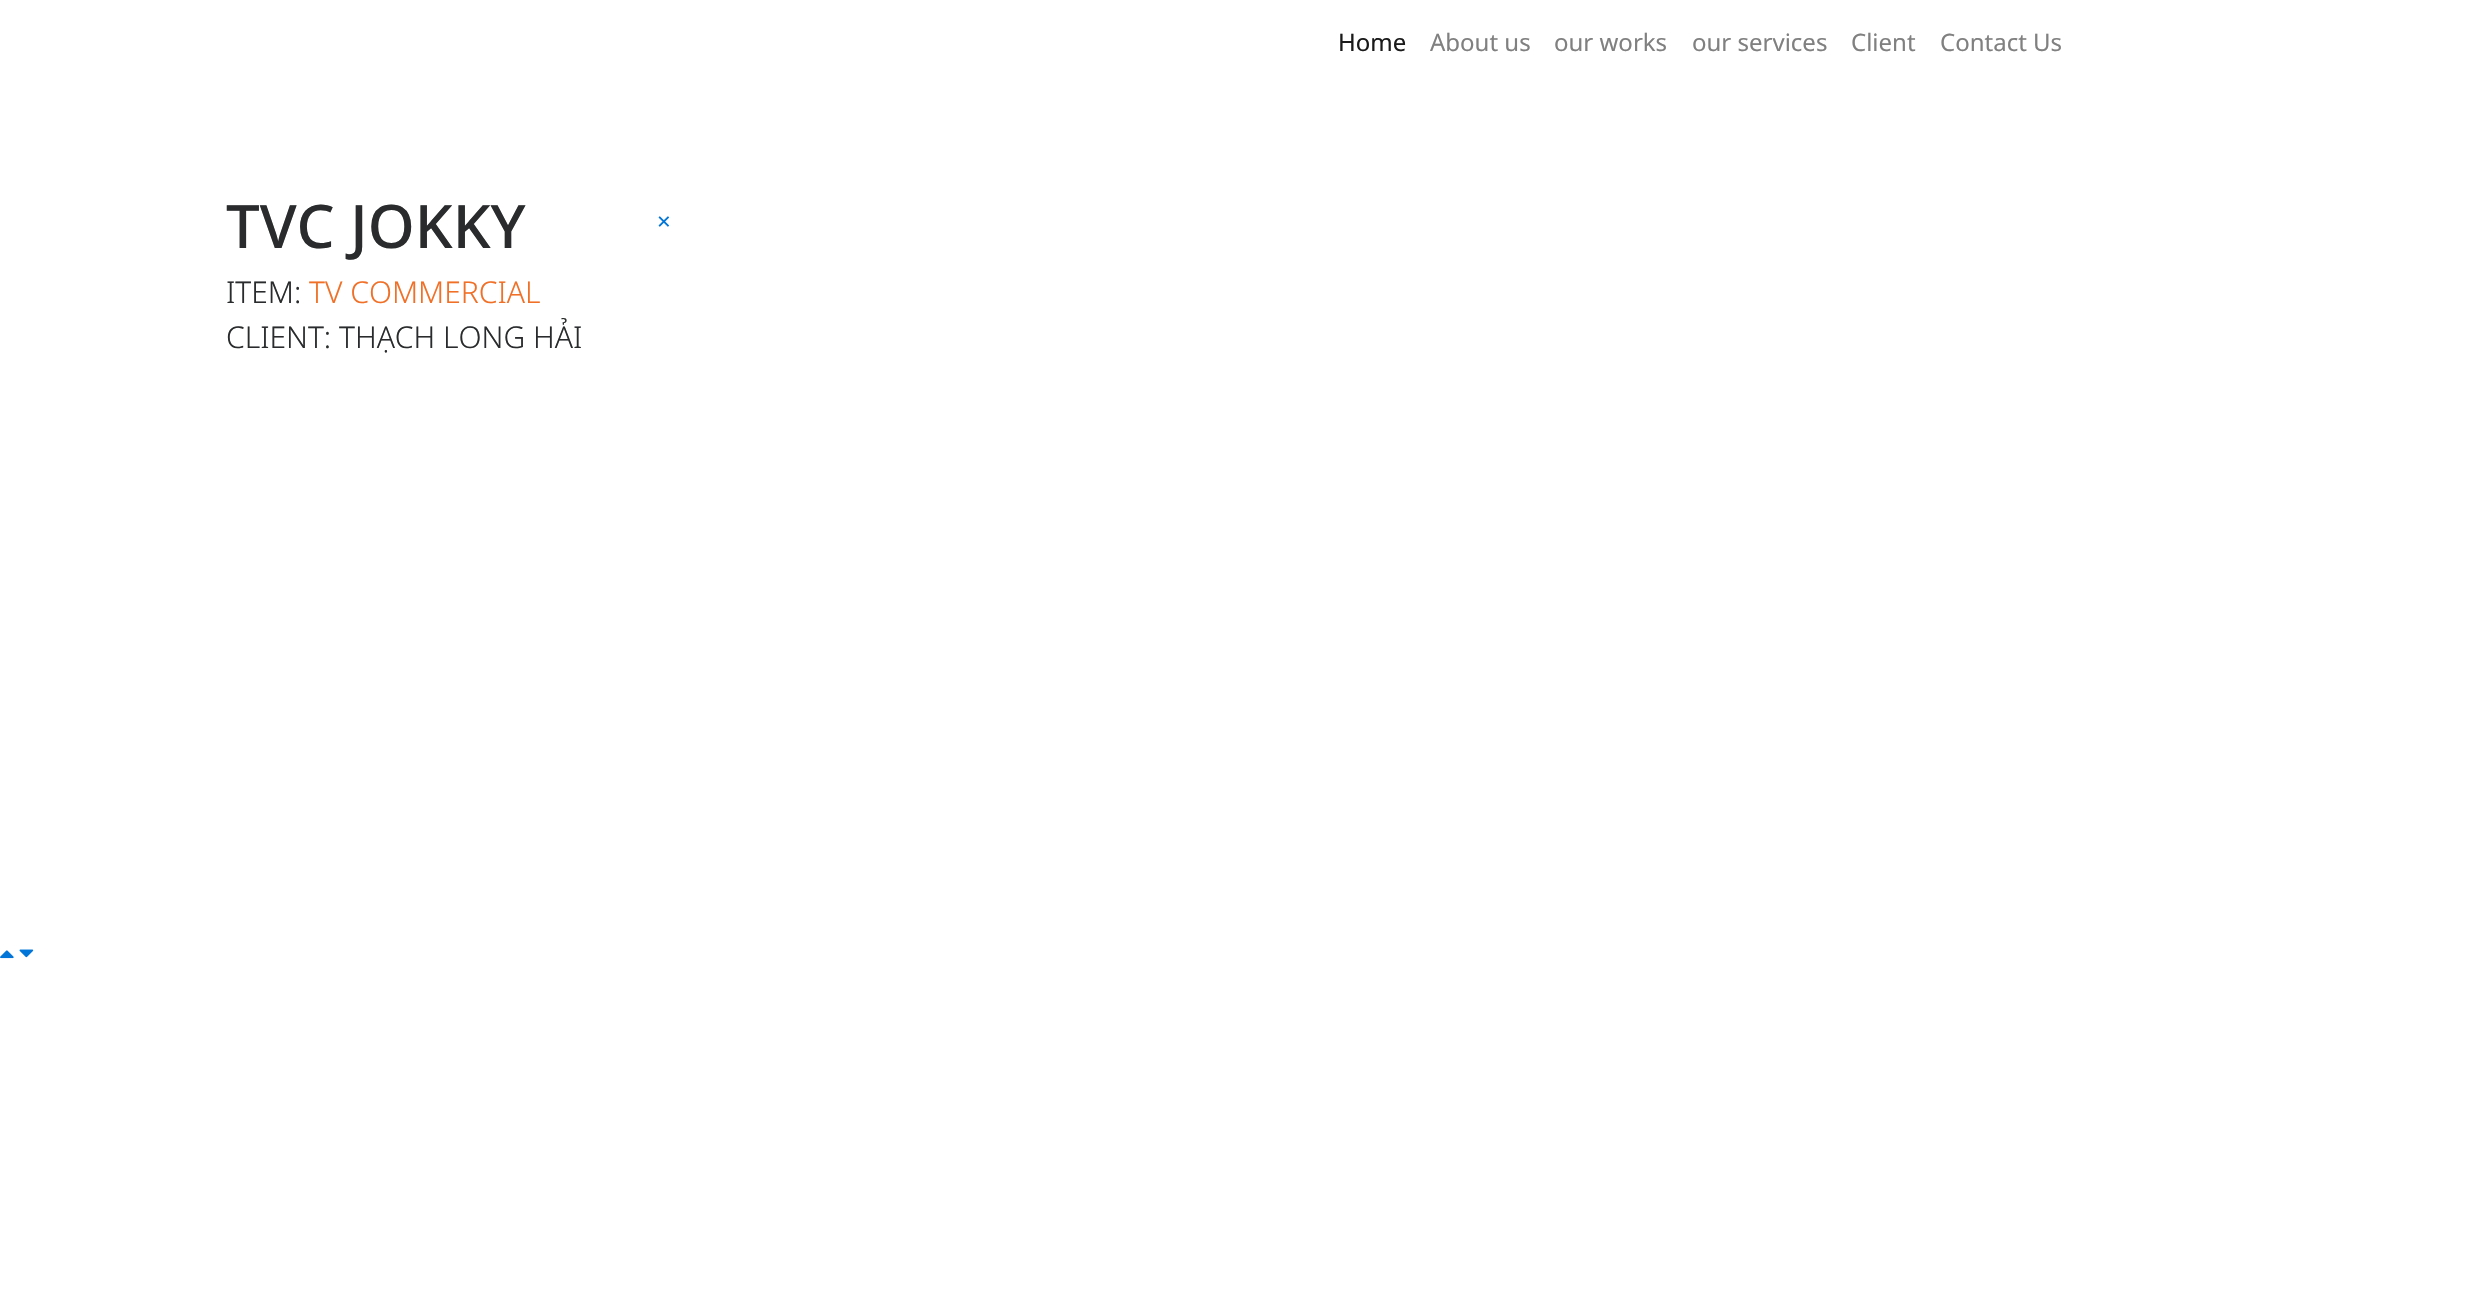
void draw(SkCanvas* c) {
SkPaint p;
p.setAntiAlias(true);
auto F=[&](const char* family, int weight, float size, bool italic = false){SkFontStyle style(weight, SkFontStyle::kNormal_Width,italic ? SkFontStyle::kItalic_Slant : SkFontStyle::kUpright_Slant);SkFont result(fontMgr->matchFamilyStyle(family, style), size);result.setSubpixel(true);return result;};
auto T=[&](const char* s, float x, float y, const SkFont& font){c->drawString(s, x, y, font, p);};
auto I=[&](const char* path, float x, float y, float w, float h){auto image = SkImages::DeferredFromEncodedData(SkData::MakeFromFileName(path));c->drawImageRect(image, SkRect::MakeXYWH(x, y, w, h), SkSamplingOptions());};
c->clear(0xffffffff);
auto f1 = F("Noto Sans",400,24);
p.setColor(0xff1a1a1a);
T("Home",1338,51,f1);
p.setColor(0xff808080);
T("About us",1430,51,f1);
T("our works",1554,51,f1);
T("our services",1692,51,f1);
T("Client",1851,51,f1);
T("Contact Us",1940,51,f1);
auto f2 = F("Noto Sans",500,60);
p.setColor(0xff292b2c);
T("TVC JOKKY",226,248,f2);
auto f3 = F("Noto Sans",300,30);
T("ITEM:",226,303,f3);
p.setColor(0xfff07027);
T("TV COMMERCIAL",309,303,f3);
p.setColor(0xff292b2c);
T("CLIENT: THẠCH LONG HẢI",226,348,f3);
p.setColor(0xff0275d8);
T("×",657,230,f1);
I("1.png",0,950,14,9);
I("2.png",19,949,15,9);
}
